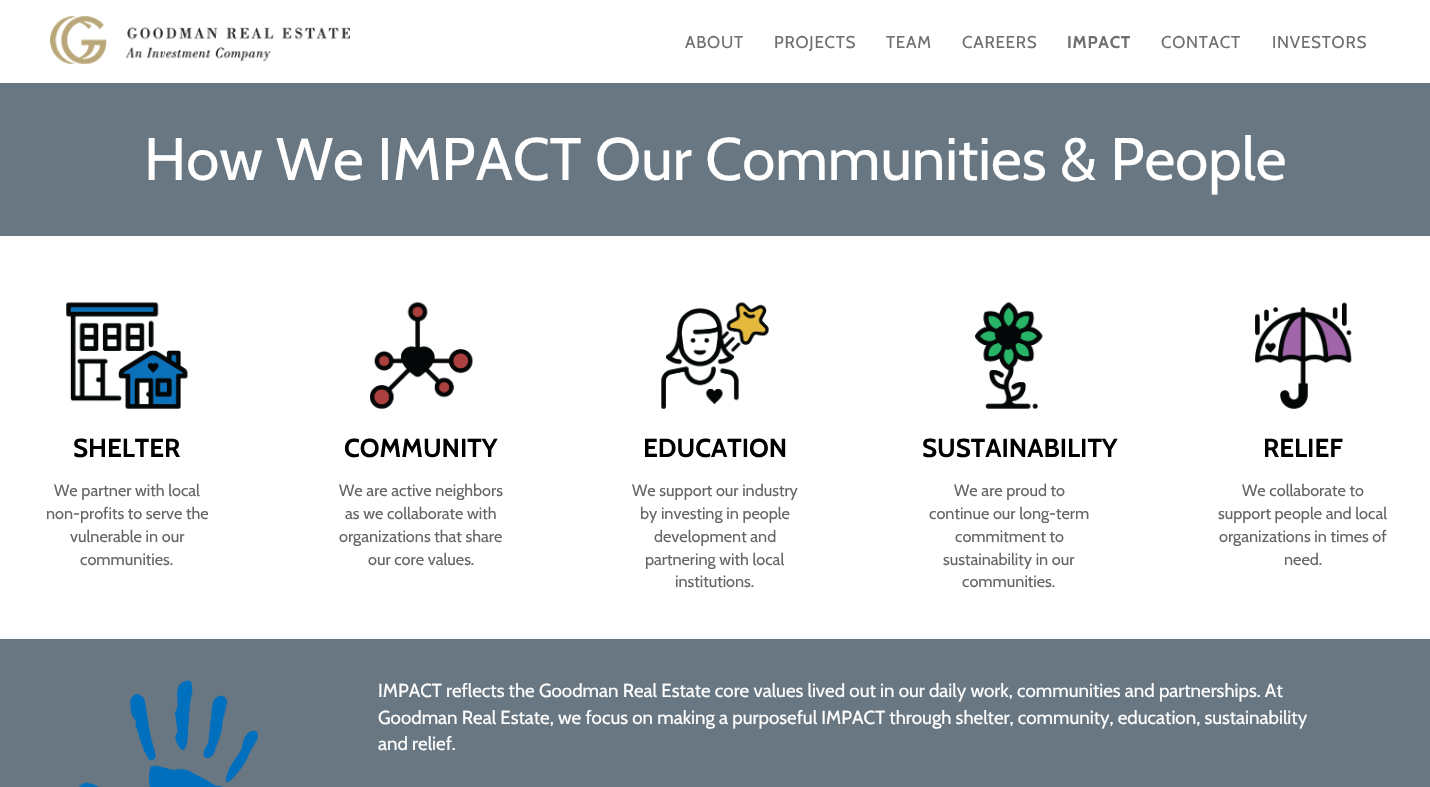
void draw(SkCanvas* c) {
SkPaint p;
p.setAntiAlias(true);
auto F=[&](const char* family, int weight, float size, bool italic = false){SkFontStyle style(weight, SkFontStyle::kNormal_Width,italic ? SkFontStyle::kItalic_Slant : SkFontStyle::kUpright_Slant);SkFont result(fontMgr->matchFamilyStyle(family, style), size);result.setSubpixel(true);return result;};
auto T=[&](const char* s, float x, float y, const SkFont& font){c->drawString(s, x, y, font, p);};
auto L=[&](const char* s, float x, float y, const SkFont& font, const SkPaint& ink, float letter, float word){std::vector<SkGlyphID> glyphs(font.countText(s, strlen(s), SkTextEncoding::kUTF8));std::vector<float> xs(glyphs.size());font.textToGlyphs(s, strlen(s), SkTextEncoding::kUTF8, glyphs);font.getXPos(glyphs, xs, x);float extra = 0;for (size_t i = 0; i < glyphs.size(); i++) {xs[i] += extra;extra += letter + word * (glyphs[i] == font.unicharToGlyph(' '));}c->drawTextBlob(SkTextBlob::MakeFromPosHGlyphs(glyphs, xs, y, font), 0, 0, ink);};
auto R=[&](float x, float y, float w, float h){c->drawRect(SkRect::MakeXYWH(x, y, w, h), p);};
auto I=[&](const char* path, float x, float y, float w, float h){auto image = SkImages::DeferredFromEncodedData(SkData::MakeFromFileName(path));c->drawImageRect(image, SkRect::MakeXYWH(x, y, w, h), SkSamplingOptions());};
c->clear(0xffffffff);
I("1.png",50,16,300,48);
auto f1 = F("Cabin",400,17);
p.setColor(0xff6f6f71);
L("ABOUT",685,48,f1,p,.75,0);
L("PROJECTS",774,48,f1,p,.75,0);
L("TEAM",886,48,f1,p,.75,0);
L("CAREERS",962,48,f1,p,.75,0);
auto f2 = F("Cabin",700,17);
L("IMPACT",1067,48,f2,p,.75,0);
L("CONTACT",1161,48,f1,p,.75,0);
L("INVESTORS",1272,48,f1,p,.75,0);
p.setColor(0xff687782);
R(0,83,1430,153);
auto f3 = F("Cabin",400,60);
p.setColor(0xffffffff);
T("How We IMPACT Our Communities & People",144,180,f3);
I("2.png",66,302,122,107);
auto f4 = F("Cabin",700,26);
p.setColor(0xff000000);
T("SHELTER",73,457,f4);
auto f5 = F("Cabin",400,16.25);
p.setColor(0xff666666);
T("We partner with local",54,496,f5);
T("non-profits to serve the",46,519,f5);
T("vulnerable in our",70,542,f5);
T("communities.",80,565,f5);
I("3.png",370,302,103,107);
p.setColor(0xff000000);
T("COMMUNITY",344,457,f4);
p.setColor(0xff666666);
T("We are active neighbors",339,496,f5);
T("as we collaborate with",345,519,f5);
T("organizations that share",339,542,f5);
T("our core values.",368,565,f5);
I("4.png",661,302,108,107);
p.setColor(0xff000000);
T("EDUCATION",643,457,f4);
p.setColor(0xff666666);
T("We support our industry",632,496,f5);
T("by investing in people",640,519,f5);
T("development and",654,542,f5);
T("partnering with local",645,565,f5);
T("institutions.",675,587,f5);
I("5.png",975,302,68,107);
p.setColor(0xff000000);
T("SUSTAINABILITY",922,457,f4);
p.setColor(0xff666666);
T("We are proud to",954,496,f5);
T("continue our long-term",929,519,f5);
T("commitment to",955,542,f5);
T("sustainability in our",943,565,f5);
T("communities.",962,587,f5);
I("6.png",1255,302,97,107);
p.setColor(0xff000000);
T("RELIEF",1263,457,f4);
p.setColor(0xff666666);
T("We collaborate to",1242,496,f5);
T("support people and local",1218,519,f5);
T("organizations in times of",1219,542,f5);
T("need.",1284,565,f5);
p.setColor(0xff687782);
R(0,639,1430,148);
I("7.png",79,680,179,107);
auto f6 = F("Cabin",400,18.75);
p.setColor(0xffffffff);
T("IMPACT reflects the Goodman Real Estate core values lived out in our daily work, communities and partnerships. At",378,697,f6);
T("Goodman Real Estate, we focus on making a purposeful IMPACT through shelter, community, education, sustainability",378,724,f6);
T("and relief.",378,750,f6);
}
